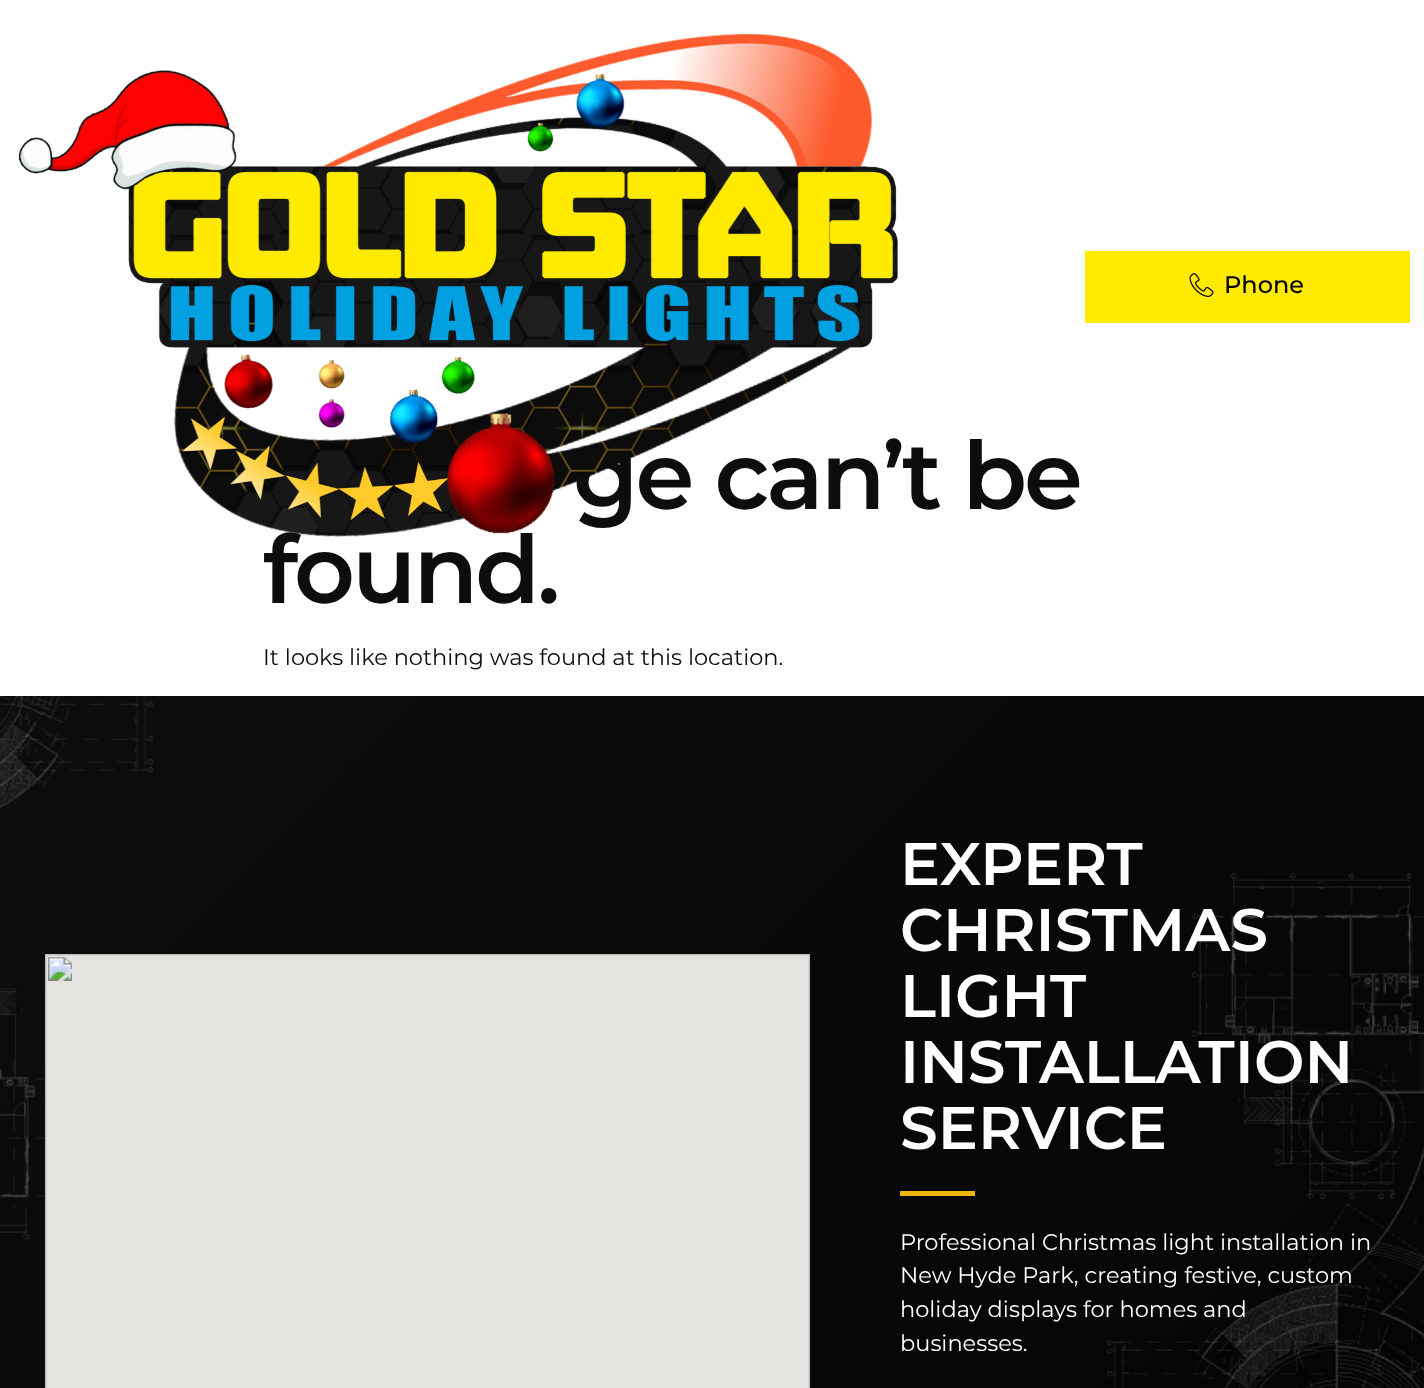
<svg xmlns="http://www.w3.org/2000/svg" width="1424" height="1388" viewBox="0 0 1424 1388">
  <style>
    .t1 { font: 600 94.5px Montserrat; letter-spacing: -3px; fill: #0d0d0d; }
    .t2 { font: 500 24px Montserrat; fill: #000; }
    .t3 { font: 22.5px Montserrat; fill: #0d0d0d; }
    .t4 { font: 600 60px Montserrat; fill: #fff; }
    .t5 { font: 22.5px Montserrat; fill: #fff; }
  </style>
  <defs>
    <linearGradient id="g1" gradientUnits="userSpaceOnUse" x1="115" y1="581" x2="1310" y2="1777"><stop offset="0" stop-color="#0d0d0d"/><stop offset="1" stop-color="#040404"/></linearGradient>
  </defs>
  <rect width="100%" height="100%" fill="#fff"/>
  <text x="573" y="509" class="t1">ge can’t be</text>
  <text x="263" y="603" class="t1">found.</text>
  <image x="18" y="33" width="880" height="504" href="images/1.png"/>
  <rect x="1085" y="251" width="325" height="72" fill="#ffea00"/>
  <image x="1189" y="273" width="25" height="24" href="images/2.png"/>
  <text x="1224" y="293" class="t2">Phone</text>
  <text x="263" y="665" class="t3">It looks like nothing was found at this location.</text>
  <rect x="0" y="696" width="1424" height="692" fill="url(#g1)"/>
  <image x="0" y="696" width="1424" height="692" href="images/3.png"/>
  <image x="45" y="954" width="765" height="434" href="images/4.png"/>
  <text x="900" y="885" class="t4">EXPERT</text>
  <text x="900" y="951" class="t4">CHRISTMAS</text>
  <text x="900" y="1017" class="t4">LIGHT</text>
  <text x="900" y="1083" class="t4">INSTALLATION</text>
  <text x="900" y="1149" class="t4">SERVICE</text>
  <rect x="900" y="1191" width="75" height="5" fill="#eeb609"/>
  <text x="900" y="1250" class="t5">Professional Christmas light installation in</text>
  <text x="900" y="1283" class="t5">New Hyde Park, creating festive, custom</text>
  <text x="900" y="1317" class="t5">holiday displays for homes and</text>
  <text x="900" y="1351" class="t5">businesses.</text>
</svg>
